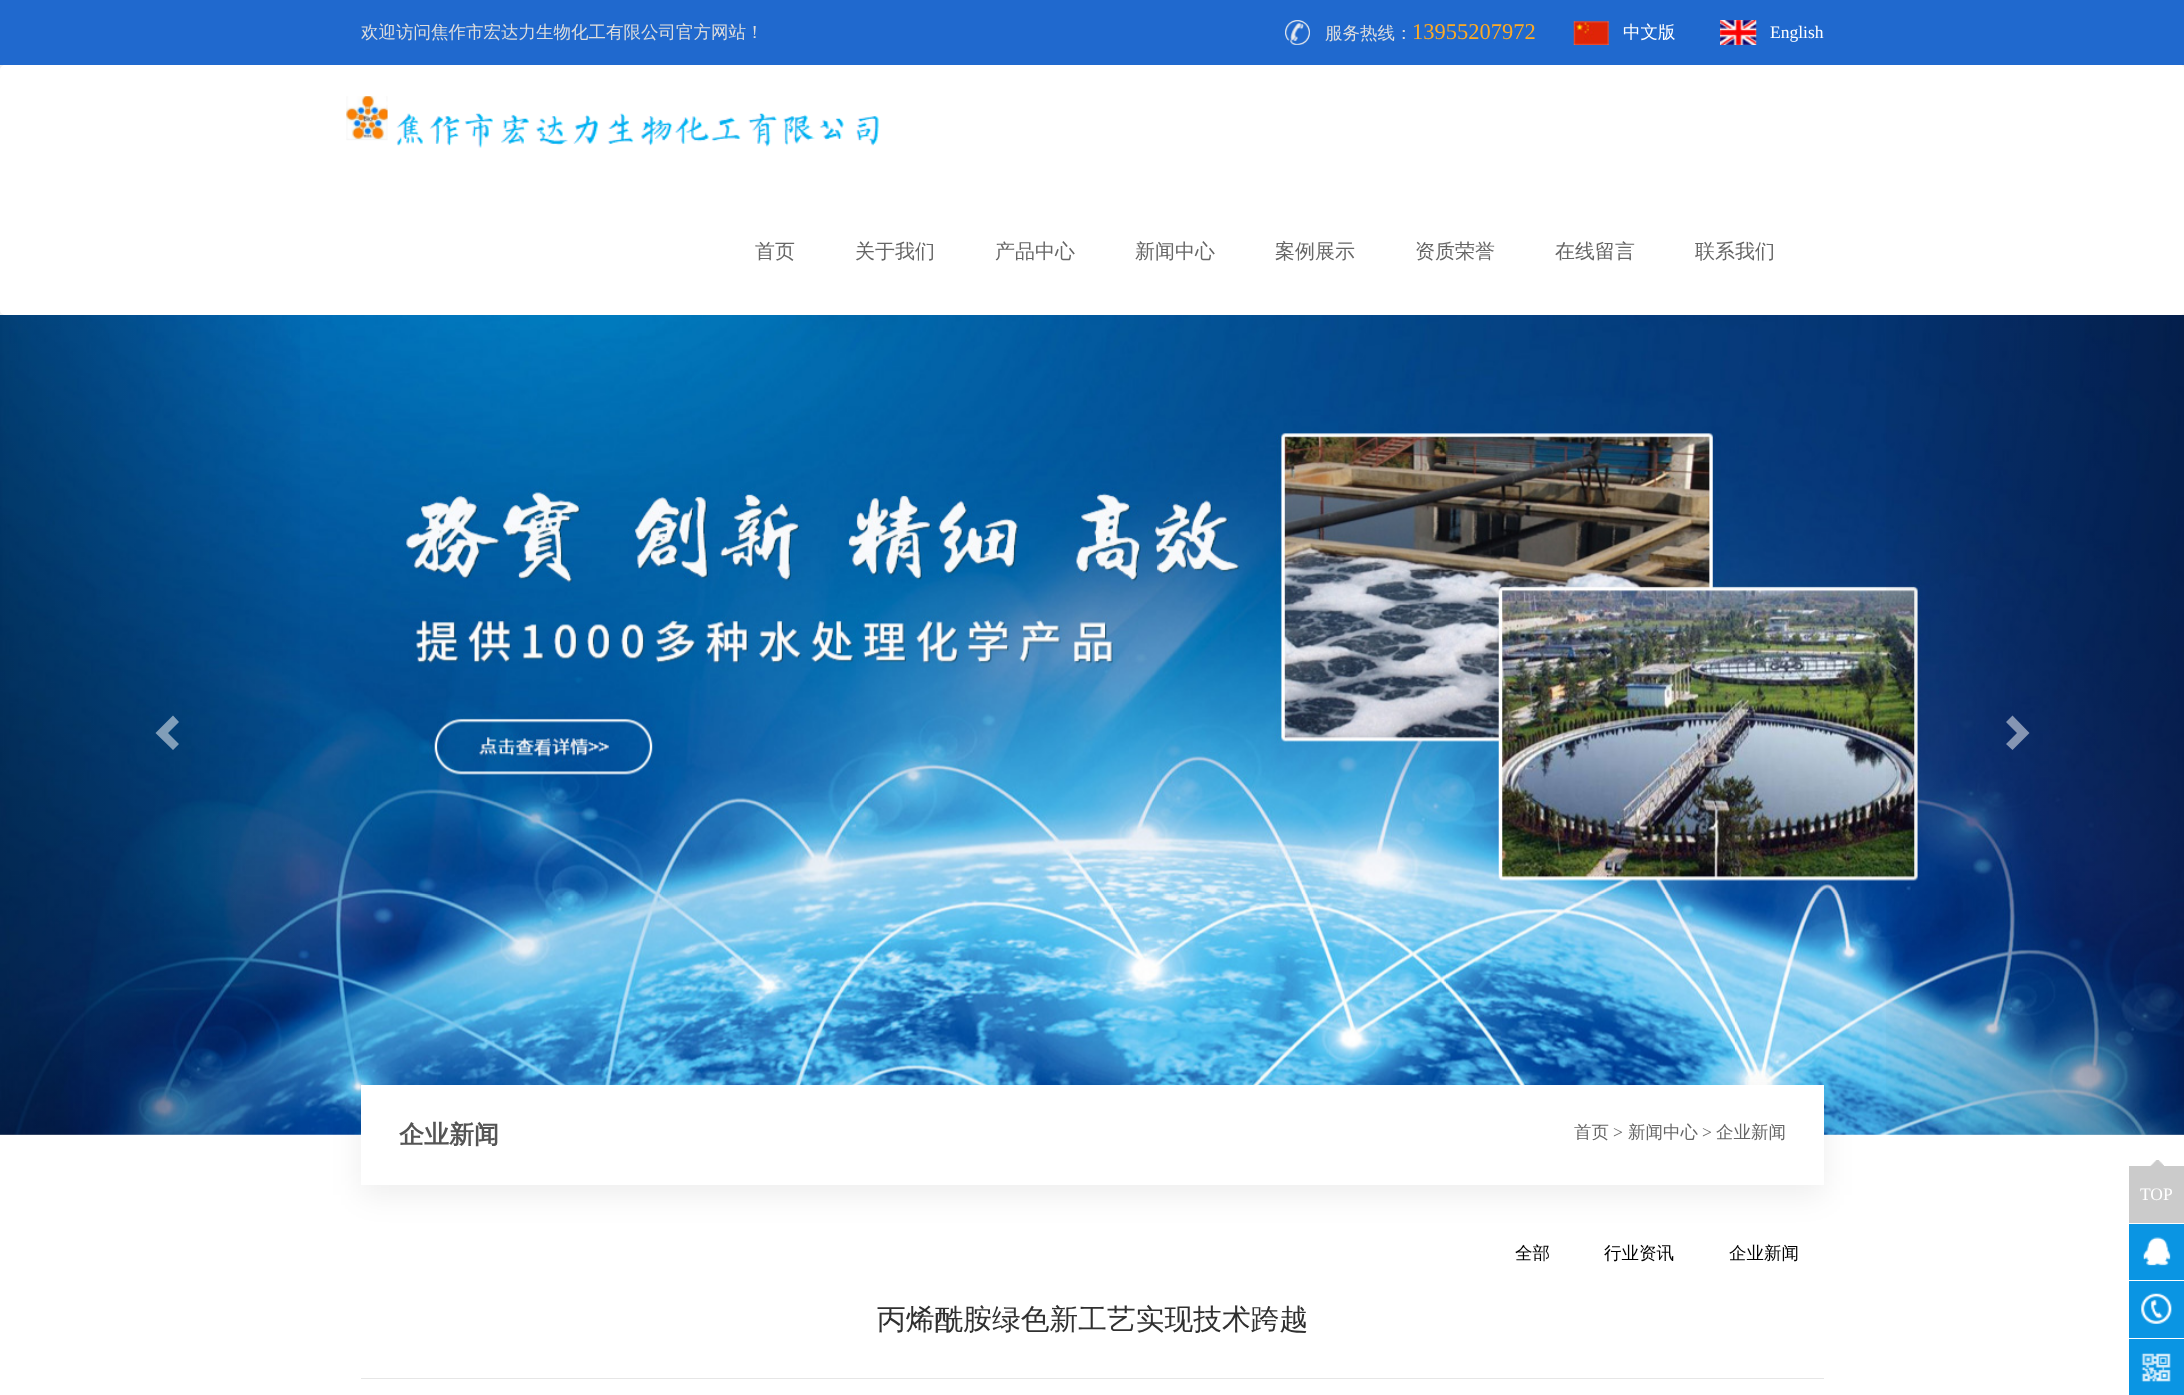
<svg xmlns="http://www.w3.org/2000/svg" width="2184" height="1395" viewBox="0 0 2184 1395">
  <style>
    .t1 { font: 500 17.5px WenQuanYi Zen Hei; fill: #ddd; }
    .t2 { font: 22.5px Liberation Serif; fill: #feaa24; }
    .t3 { font: 500 17.5px WenQuanYi Zen Hei; fill: #fff; }
    .t4 { font: 17.5px Liberation Serif; fill: #fff; }
    .t5 { font: 500 20px WenQuanYi Zen Hei; fill: #666; }
    .t6 { font: bold 25px WenQuanYi Zen Hei; fill: #555; }
    .t7 { font: 500 17.5px WenQuanYi Zen Hei; fill: #666; }
    .t8 { font: 17.5px Liberation Serif; fill: #666; }
    .t9 { font: 500 17.5px WenQuanYi Zen Hei; fill: #000; }
    .t10 { font: 500 28.75px WenQuanYi Zen Hei; fill: #303030; }
  </style>
  <defs>
    <linearGradient id="g1" gradientUnits="userSpaceOnUse" x1="0" y1="725" x2="328" y2="725"><stop offset="0" stop-color="#000" stop-opacity="0.25"/><stop offset="1" stop-color="#000" stop-opacity="0"/></linearGradient>
    <linearGradient id="g2" gradientUnits="userSpaceOnUse" x1="1858" y1="725" x2="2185" y2="725"><stop offset="0" stop-color="#000" stop-opacity="0"/><stop offset="1" stop-color="#000" stop-opacity="0.25"/></linearGradient>
  </defs>
  <rect width="100%" height="100%" fill="#f1f1f1"/>
  <rect x="0" y="0" width="2184" height="65" fill="#2069ce"/>
  <text x="361" y="38" class="t1">欢迎访问焦作市宏达力生物化工有限公司官方网站！</text>
  <image x="1285" y="20" width="25" height="25" href="images/1.png"/>
  <text x="1325" y="39" class="t1">服务热线：</text>
  <text x="1412" y="39" class="t2">13955207972</text>
  <image x="1573" y="21" width="36" height="24" href="images/2.png"/>
  <text x="1623" y="38" class="t3">中文版</text>
  <image x="1720" y="20" width="37" height="25" href="images/3.png"/>
  <text x="1770" y="38" class="t4">English</text>
  <rect x="0" y="65" width="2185" height="250" rx="5" fill="#fff"/>
  <image x="346" y="96" width="533" height="52" href="images/4.png"/>
  <text x="755" y="258" class="t5">首页</text>
  <text x="855" y="258" class="t5">关于我们</text>
  <text x="995" y="258" class="t5">产品中心</text>
  <text x="1135" y="258" class="t5">新闻中心</text>
  <text x="1275" y="258" class="t5">案例展示</text>
  <text x="1415" y="258" class="t5">资质荣誉</text>
  <text x="1555" y="258" class="t5">在线留言</text>
  <text x="1695" y="258" class="t5">联系我们</text>
  <image x="0" y="315" width="2184" height="820" href="images/5.png"/>
  <rect x="0" y="315" width="300" height="820" fill="url(#g1)"/>
  <path d="M179 722L168 733L179 744L173 750L155.5 733L173 715.5Z" fill="#ffffff80"/>
  <rect x="1886" y="315" width="298" height="820" fill="url(#g2)"/>
  <path d="M2029.5 733L2012.5 750L2006 744L2017 733L2006 722L2012.5 715.5Z" fill="#ffffff80"/>
  <rect x="0" y="1135" width="2184" height="98" fill="#fff"/>
  <rect x="361" y="1095" width="1463" height="100" fill="#00000012" filter="blur(15.5px)"/>
  <rect x="361" y="1085" width="1463" height="100" fill="#fff"/>
  <text x="399" y="1143" class="t6">企业新闻</text>
  <text x="1574" y="1138" class="t7">首页</text>
  <text x="1613" y="1138" class="t8">&gt;</text>
  <text x="1628" y="1138" class="t7">新闻中心</text>
  <text x="1702" y="1138" class="t8">&gt;</text>
  <text x="1716" y="1138" class="t7">企业新闻</text>
  <image x="2150" y="1160" width="14" height="6" href="images/6.png"/>
  <rect x="0" y="1233" width="2184" height="162" fill="#fff"/>
  <text x="1515" y="1259" class="t9">全部</text>
  <text x="1604" y="1259" class="t9">行业资讯</text>
  <text x="1729" y="1259" class="t9">企业新闻</text>
  <rect x="361" y="1378" width="1463" height="1" fill="#e6e6e6"/>
  <text x="877" y="1329" class="t10">丙烯酰胺绿色新工艺实现技术跨越</text>
  <rect x="2129" y="1166" width="55" height="57" fill="#cbcbcb"/>
  <image x="2150" y="1160" width="14" height="6" href="images/7.png"/>
  <text x="2140" y="1200" class="t4">TOP</text>
  <rect x="2129" y="1224" width="55" height="56" fill="#0a95e3"/>
  <image x="2143" y="1237" width="28" height="29" href="images/8.png"/>
  <rect x="2129" y="1281" width="55" height="57" fill="#0a95e3"/>
  <image x="2141" y="1293" width="31" height="31" href="images/9.png"/>
  <rect x="2129" y="1339" width="55" height="56" fill="#0a95e3"/>
  <image x="2141" y="1353" width="30" height="29" href="images/10.png"/>
</svg>
